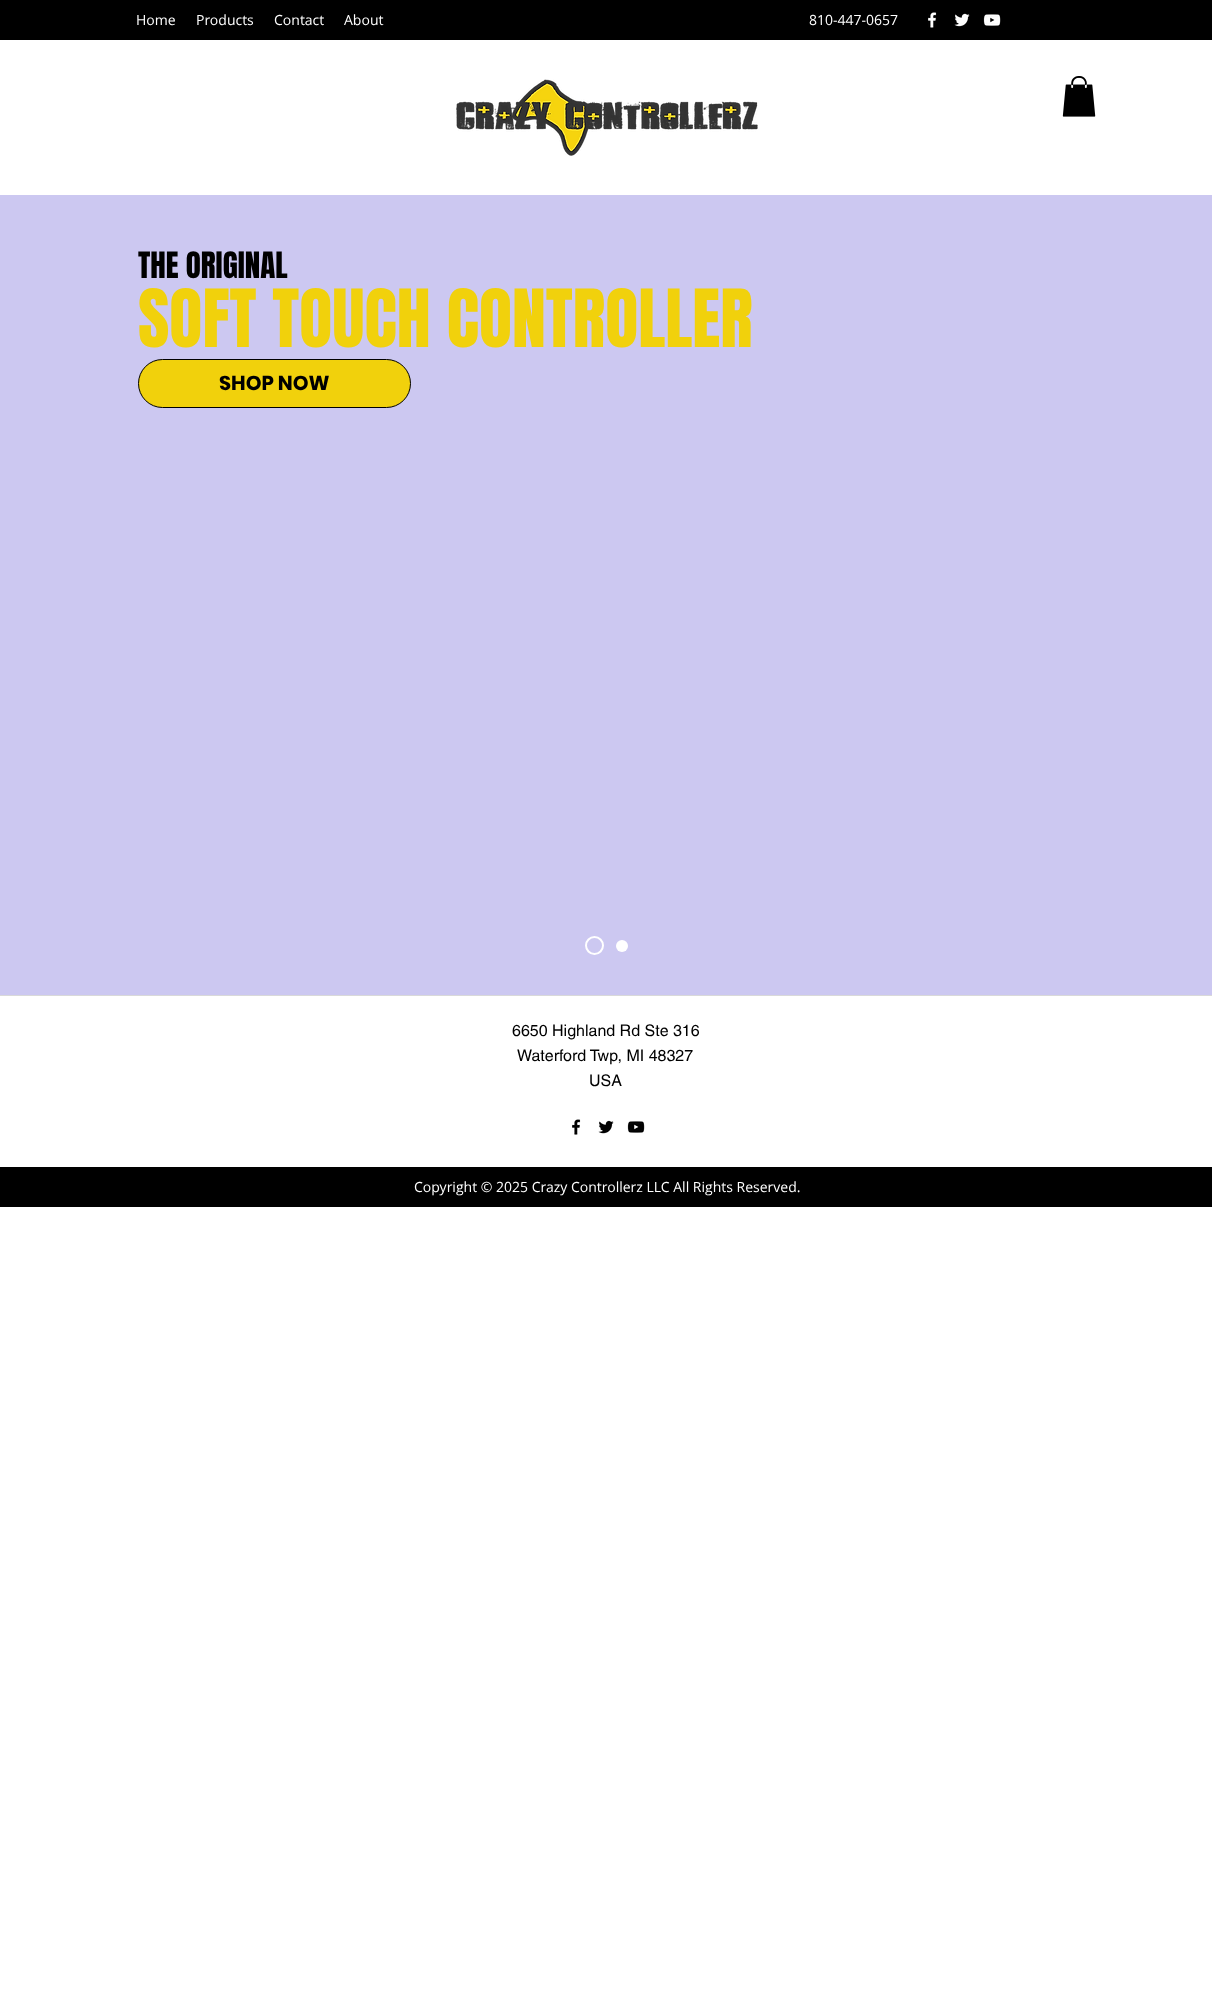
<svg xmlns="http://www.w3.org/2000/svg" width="1212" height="2000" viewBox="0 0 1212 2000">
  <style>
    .t1 { font: 14px Open Sans; fill: #fff; }
    .t2 { font: 31px Anton; fill: #000; }
    .t3 { font: 68px Anton; fill: #f1d10c; }
    .t4 { font: bold 20px Poppins; fill: #000; }
    .t5 { font: 16px helvetica; fill: #000; }
  </style>
  <rect width="100%" height="100%" fill="#fff"/>
  <rect x="0" y="0" width="1212" height="40" fill="#000"/>
  <text x="136" y="25" class="t1">Home</text>
  <text x="196" y="25" class="t1">Products</text>
  <text x="274" y="25" class="t1">Contact</text>
  <text x="344" y="25" class="t1">About</text>
  <text x="809" y="25" class="t1">810-447-0657</text>
  <image x="928" y="12" width="9" height="16" href="images/1.png"/>
  <image x="954" y="13" width="16" height="14" href="images/2.png"/>
  <image x="983" y="14" width="18" height="12" href="images/3.png"/>
  <image x="456" y="79" width="302" height="77" href="images/4.png"/>
  <image x="1062" y="76" width="34" height="41" href="images/5.png"/>
  <rect x="0" y="195" width="1212" height="800" fill="#ccc8f1"/>
  <text x="138" y="278" class="t2">THE ORIGINAL</text>
  <text x="138" y="347" class="t3">SOFT TOUCH CONTROLLER</text>
  <rect x="138.5" y="359.5" width="272" height="48" rx="24" fill="#f1d10c" stroke="#000"/>
  <text x="219" y="390" class="t4">SHOP NOW</text>
  <circle cx="594.5" cy="945.5" r="8.5" fill="none" stroke="#fff" stroke-width="2"/>
  <circle cx="622" cy="946" r="6" fill="#fff"/>
  <rect x="0" y="995" width="1212" height="1" fill="#d9d9d9"/>
  <text x="512" y="1036" class="t5">6650 Highland Rd Ste 316</text>
  <text x="517" y="1061" class="t5">Waterford Twp, MI 48327</text>
  <text x="589" y="1086" class="t5">USA</text>
  <image x="572" y="1119" width="9" height="16" href="images/6.png"/>
  <image x="598" y="1120" width="16" height="14" href="images/7.png"/>
  <image x="627" y="1121" width="18" height="12" href="images/8.png"/>
  <rect x="0" y="1167" width="1212" height="40" fill="#000"/>
  <text x="414" y="1192" class="t1">Copyright © 2025 Crazy Controllerz LLC All Rights Reserved.</text>
</svg>
